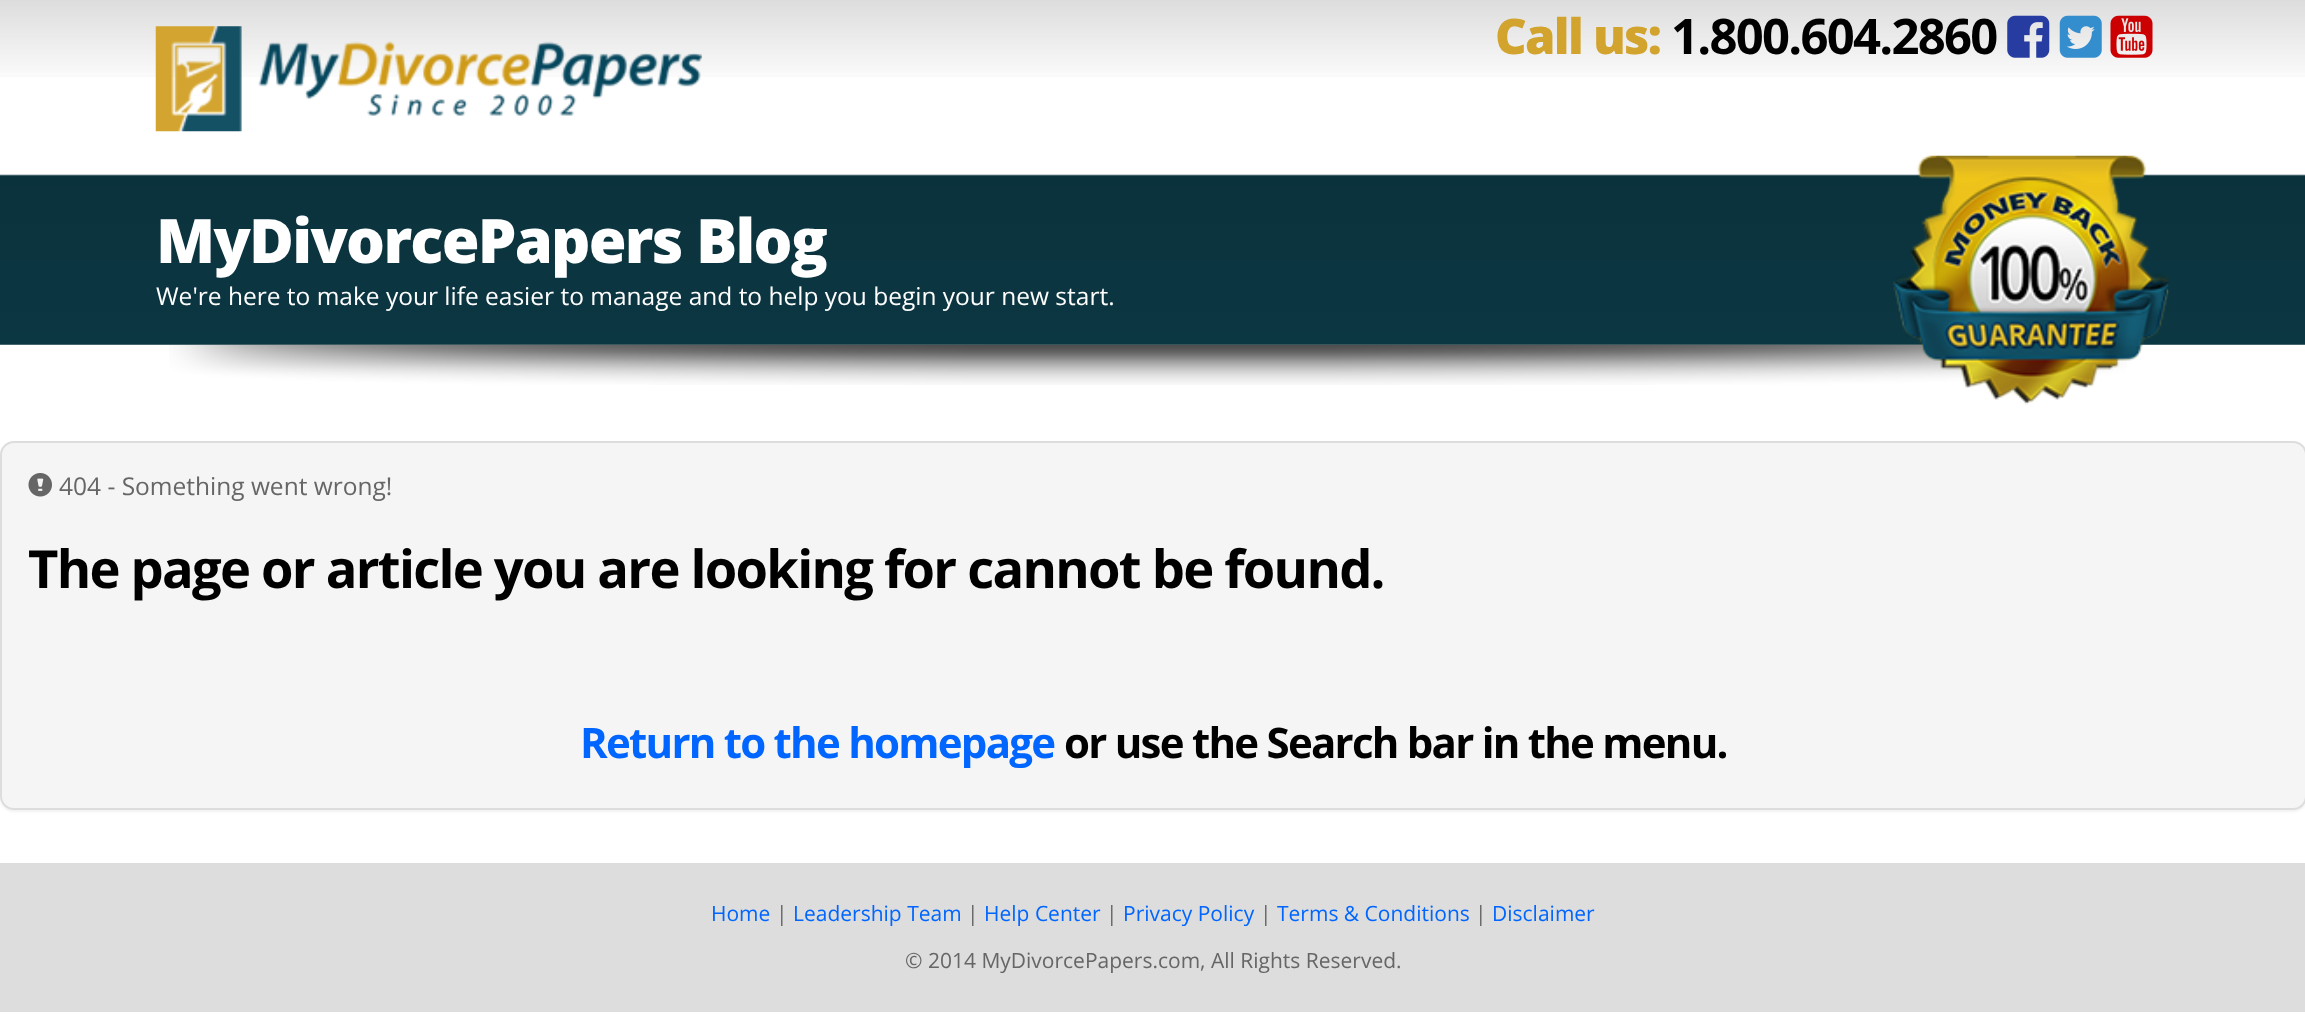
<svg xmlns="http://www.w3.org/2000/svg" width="2305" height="1023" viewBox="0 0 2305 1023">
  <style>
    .t1 { font: 800 49px Open Sans; letter-spacing: -1.75px; fill: #d2a42e; }
    .t2 { font: bold 49px Open Sans; letter-spacing: -1.75px; fill: #000; }
    .t3 { font: 800 61.25px Open Sans; letter-spacing: -1.75px; fill: #fff; }
    .t4 { font: 24.5px Open Sans; fill: #fff; }
    .t5 { font: 24.5px Open Sans; fill: #666; }
    .t6 { font: bold 52.5px Open Sans; letter-spacing: -1.75px; fill: #000; }
    .t7 { font: bold 42px Open Sans; letter-spacing: -1.75px; fill: #06f; }
    .t8 { font: bold 42px Open Sans; letter-spacing: -1.75px; fill: #000; }
    .t9 { font: 21px Open Sans; fill: #06f; }
    .t10 { font: 21px Open Sans; fill: #666; }
  </style>
  <rect width="100%" height="100%" fill="#fff"/>
  <image x="0" y="0" width="2305" height="77" href="images/1.png"/>
  <image x="155" y="26" width="547" height="106" href="images/2.png"/>
  <text x="1495" y="54" class="t1">Call us:</text>
  <text x="1671" y="54" class="t2">1.800.604.2860</text>
  <image x="2007" y="15" width="43" height="43" href="images/3.png"/>
  <image x="2059" y="15" width="43" height="43" href="images/4.png"/>
  <image x="2110" y="15" width="43" height="43" href="images/5.png"/>
  <image x="0" y="154" width="2305" height="191" href="images/6.png"/>
  <text x="156" y="263" class="t3">MyDivorcePapers Blog</text>
  <image x="169" y="344" width="1958" height="41" href="images/8.png"/>
  <image x="1893" y="155" width="276" height="250" href="images/7.png"/>
  <text x="156" y="305" class="t4">We're here to make your life easier to manage and to help you begin your new start.</text>
  <rect x="0" y="443" width="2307" height="369" rx="14" fill="#0000000d" filter="blur(1px)"/>
  <rect x="1" y="442" width="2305" height="367" rx="13" fill="#f5f5f5" stroke="#ddd" stroke-width="2"/>
  <image x="28" y="473" width="24" height="24" href="images/9.png"/>
  <text x="59" y="495" class="t5">404 - Something went wrong!</text>
  <text x="28" y="588" class="t6">The page or article you are looking for cannot be found.</text>
  <text x="580" y="758" class="t7">Return to the homepage</text>
  <text x="1064" y="758" class="t8">or use the Search bar in the menu.</text>
  <rect x="0" y="863" width="2305" height="149" fill="#ddd"/>
  <text x="711" y="921" class="t9">Home</text>
  <text x="776" y="921" class="t10">|</text>
  <text x="793" y="921" class="t9">Leadership Team</text>
  <text x="967" y="921" class="t10">|</text>
  <text x="984" y="921" class="t9">Help Center</text>
  <text x="1106" y="921" class="t10">|</text>
  <text x="1123" y="921" class="t9">Privacy Policy</text>
  <text x="1260" y="921" class="t10">|</text>
  <text x="1277" y="921" class="t9">Terms &amp; Conditions</text>
  <text x="1475" y="921" class="t10">|</text>
  <text x="1492" y="921" class="t9">Disclaimer</text>
  <text x="905" y="968" class="t10">© 2014 MyDivorcePapers.com, All Rights Reserved.</text>
</svg>
